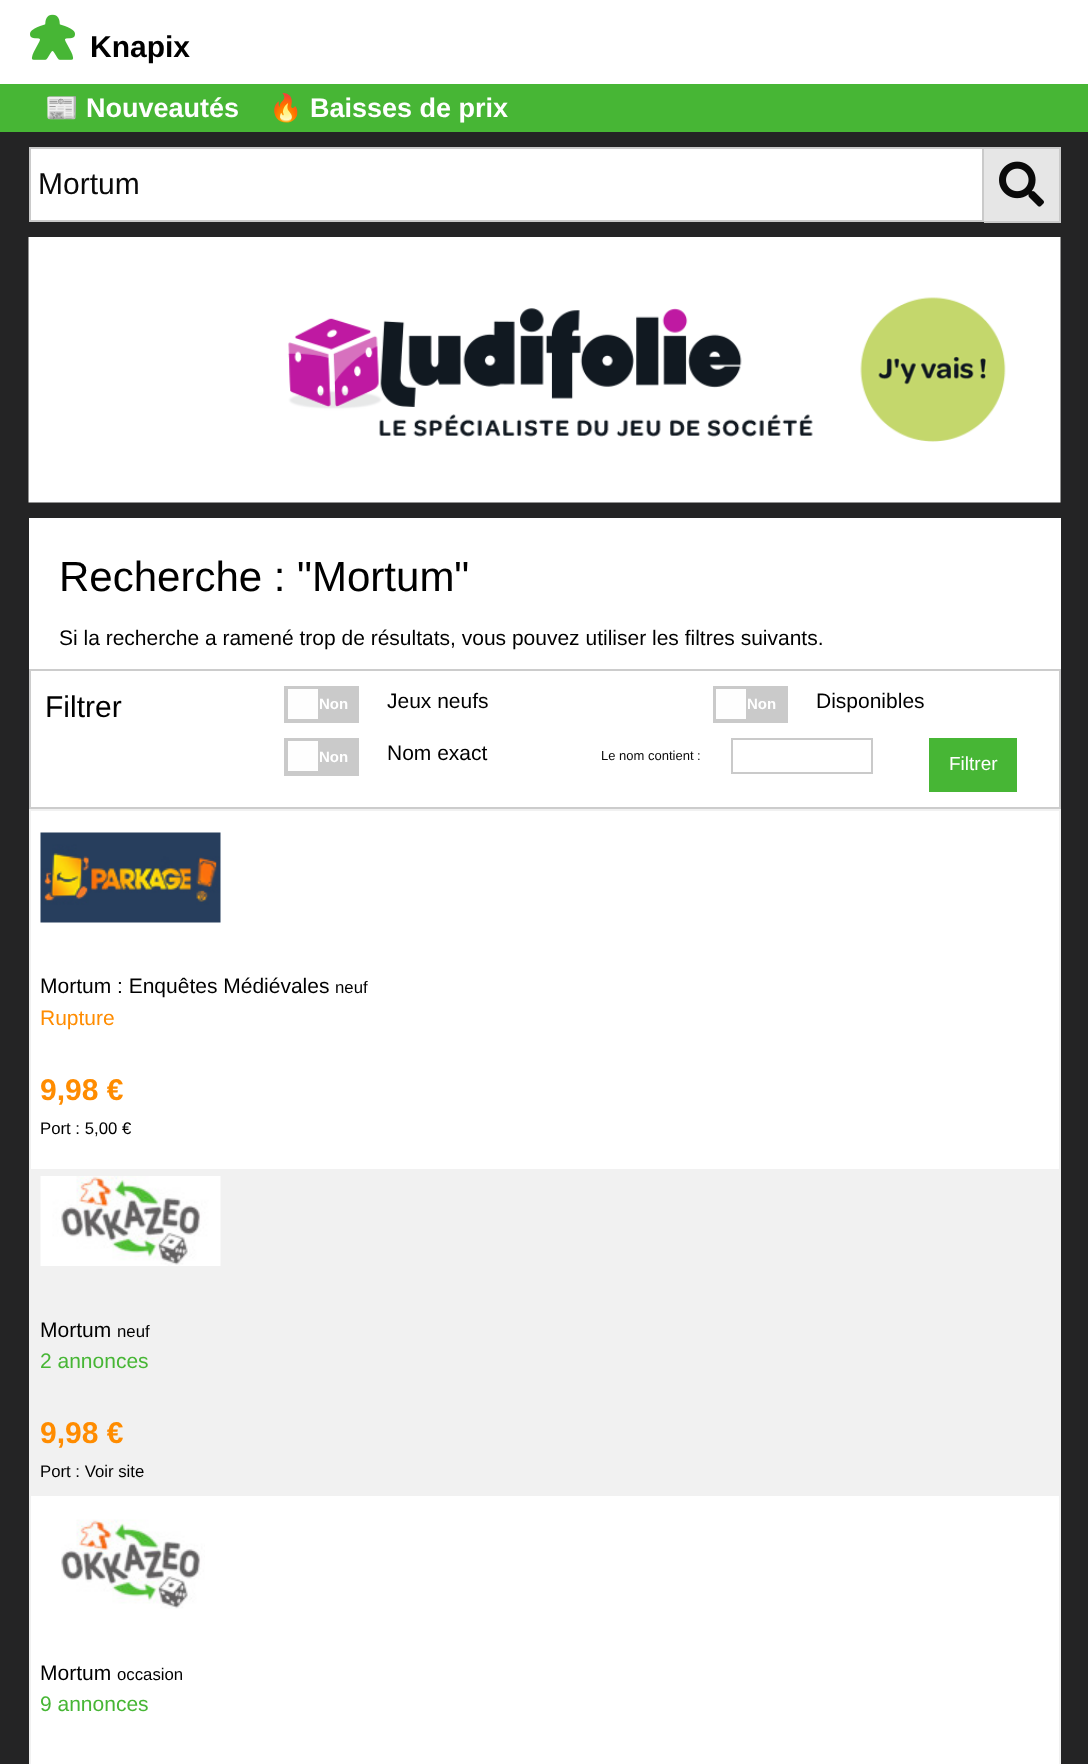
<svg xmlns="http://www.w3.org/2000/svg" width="1088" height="1764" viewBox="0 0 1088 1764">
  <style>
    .t1 { font: bold 30px Liberation Sans; fill: #000; }
    .t2 { font: bold 27px Noto Color Emoji; fill: #fff; }
    .t3 { font: bold 27px Liberation Sans; fill: #fff; }
    .t4 { font: 30px Liberation Sans; fill: #0a0a0a; }
    .t5 { font: 42px Liberation Sans; fill: #000; }
    .t6 { font: 21px Liberation Sans; fill: #000; }
    .t7 { font: 30px Liberation Sans; fill: #000; }
    .t8 { font: bold 15px Liberation Sans; fill: #fff; }
    .t9 { font: 13px Liberation Sans; fill: #0a0a0a; }
    .t10 { font: 19px Liberation Sans; fill: #fff; }
    .t11 { font: 16.75px Liberation Sans; fill: #000; }
    .t12 { font: 21px Liberation Sans; fill: #ff8c00; }
    .t13 { font: bold 30px Liberation Sans; fill: #ff8c00; }
    .t14 { font: 21px Liberation Sans; fill: #47b635; }
  </style>
  <rect width="100%" height="100%" fill="#fff"/>
  <image x="30" y="14" width="45" height="46" href="images/1.png"/>
  <text x="90" y="57" class="t1">Knapix</text>
  <rect x="0" y="84" width="1088" height="48" fill="#47b635"/>
  <text x="45" y="117" class="t2">📰</text>
  <text x="86" y="117" class="t3">Nouveautés</text>
  <text x="269" y="117" class="t2">🔥</text>
  <text x="310" y="117" class="t3">Baisses de prix</text>
  <rect x="0" y="132" width="1088" height="1632" fill="#242425"/>
  <rect x="30" y="148" width="953" height="73" fill="#fff" stroke="#cacaca" stroke-width="2"/>
  <text x="38" y="194" class="t4">Mortum</text>
  <rect x="984" y="149" width="75" height="72" fill="#e6e6e6"/>
  <rect x="984" y="147" width="77" height="2" fill="#cacaca"/>
  <rect x="1059" y="147" width="2" height="75" fill="#cacaca"/>
  <rect x="984" y="221" width="77" height="2" fill="#cacaca"/>
  <image x="999" y="161" width="45" height="46" href="images/2.png"/>
  <image x="28" y="237" width="1033" height="266" href="images/3.png"/>
  <rect x="29" y="518" width="1032" height="1246" fill="#fff"/>
  <text x="59" y="591" class="t5">Recherche : "Mortum"</text>
  <text x="59" y="645" class="t6">Si la recherche a ramené trop de résultats, vous pouvez utiliser les filtres suivants.</text>
  <rect x="30" y="670" width="1030" height="138" fill="none" stroke="#ccc" stroke-width="2"/>
  <text x="45" y="717" class="t7">Filtrer</text>
  <rect x="284" y="686" width="75" height="37" fill="#cacaca"/>
  <rect x="288" y="689" width="30" height="30" fill="#fefefe"/>
  <text x="319" y="709" class="t8">Non</text>
  <text x="387" y="708" class="t6">Jeux neufs</text>
  <rect x="713" y="686" width="75" height="37" fill="#cacaca"/>
  <rect x="716" y="689" width="30" height="30" fill="#fefefe"/>
  <text x="747" y="709" class="t8">Non</text>
  <text x="816" y="708" class="t6">Disponibles</text>
  <rect x="284" y="738" width="75" height="38" fill="#cacaca"/>
  <rect x="288" y="741" width="30" height="30" fill="#fefefe"/>
  <text x="319" y="762" class="t8">Non</text>
  <text x="387" y="760" class="t6">Nom exact</text>
  <text x="601" y="760" class="t9">Le nom contient :</text>
  <rect x="732" y="739" width="140" height="34" fill="none" stroke="#cacaca" stroke-width="2"/>
  <rect x="929" y="738" width="88" height="54" fill="#47b635"/>
  <text x="949" y="770" class="t10">Filtrer</text>
  <rect x="29" y="809" width="1032" height="2" fill="#f1f1f1"/>
  <rect x="1059" y="809" width="2" height="955" fill="#f1f1f1"/>
  <rect x="29" y="809" width="2" height="955" fill="#f1f1f1"/>
  <image x="40" y="832" width="181" height="91" href="images/4.png"/>
  <text x="40" y="993" class="t6">Mortum : Enquêtes Médiévales</text>
  <text x="335" y="993" class="t11">neuf</text>
  <text x="40" y="1025" class="t12">Rupture</text>
  <text x="40" y="1100" class="t13">9,98 €</text>
  <text x="40" y="1134" class="t11">Port : 5,00 €</text>
  <rect x="31" y="1169" width="1028" height="327" fill="#f1f1f1"/>
  <image x="40" y="1176" width="181" height="90" href="images/5.png"/>
  <text x="40" y="1337" class="t6">Mortum</text>
  <text x="117" y="1337" class="t11">neuf</text>
  <text x="40" y="1368" class="t14">2 annonces</text>
  <text x="40" y="1443" class="t13">9,98 €</text>
  <text x="40" y="1477" class="t11">Port : Voir site</text>
  <image x="61" y="1519" width="144" height="90" href="images/6.png"/>
  <text x="40" y="1680" class="t6">Mortum</text>
  <text x="117" y="1680" class="t11">occasion</text>
  <text x="40" y="1711" class="t14">9 annonces</text>
</svg>
